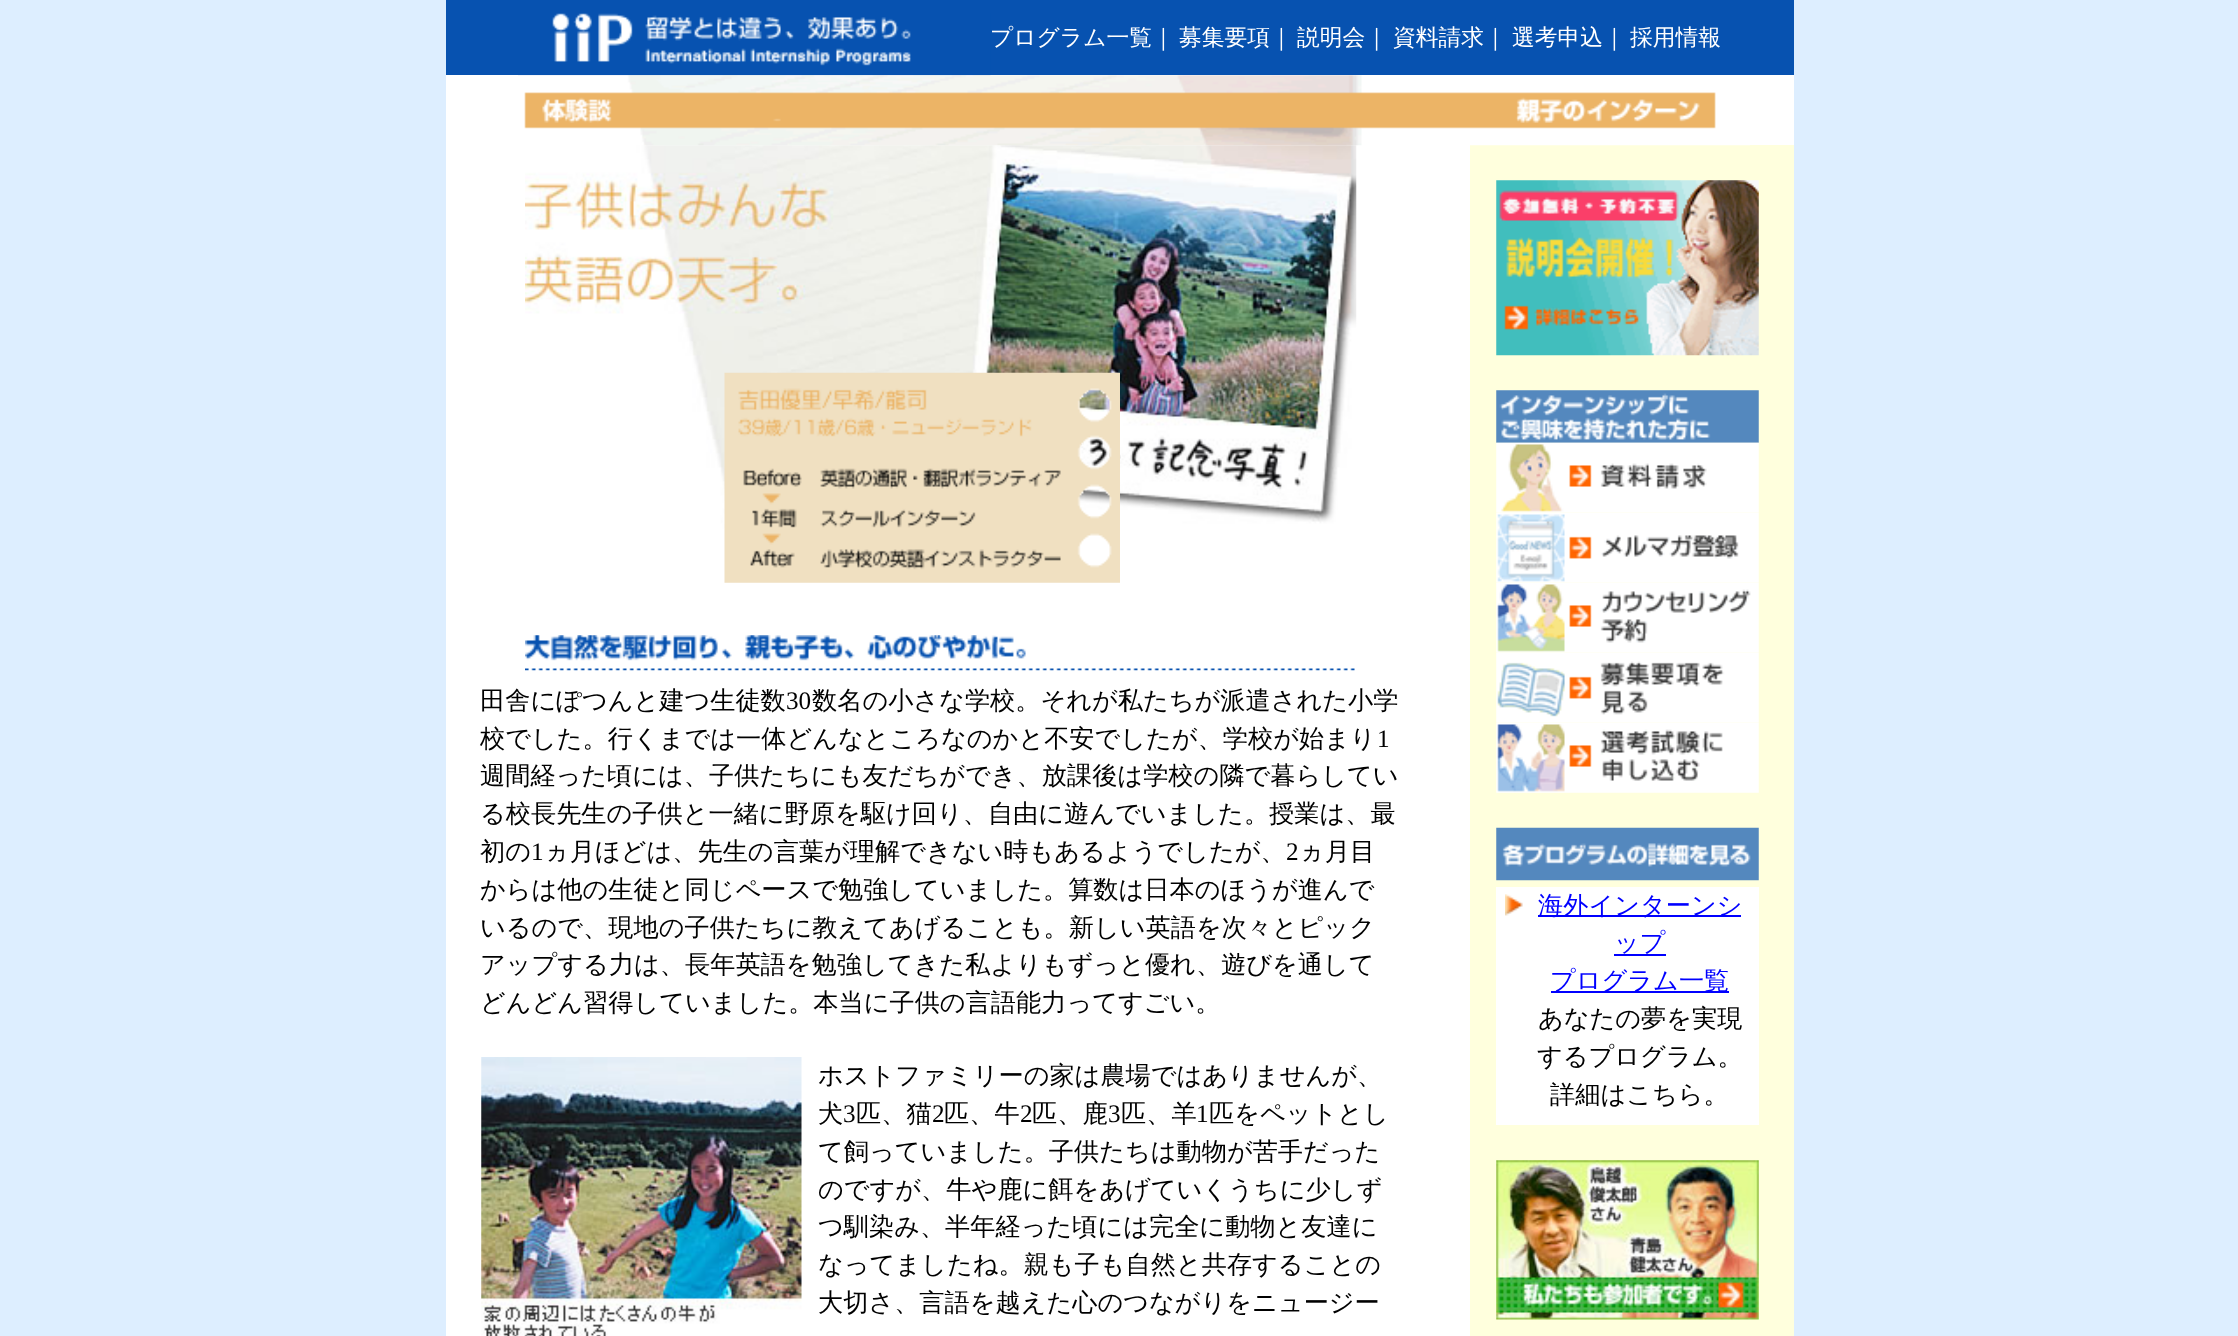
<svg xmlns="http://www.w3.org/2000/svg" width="2238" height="1336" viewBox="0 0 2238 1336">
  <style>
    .t1 { font: 500 22.75px WenQuanYi Zen Hei; fill: #fff; }
    .t2 { font: 500 25.2px WenQuanYi Zen Hei; fill: #000; }
    .t3 { font: 25.2px Liberation Serif; fill: #000; }
    .t4 { font: 500 25.2px WenQuanYi Zen Hei; fill: #00f; }
  </style>
  <rect width="100%" height="100%" fill="#def"/>
  <rect x="446" y="75" width="1348" height="1261" fill="#fff"/>
  <rect x="446" y="0" width="1348" height="75" fill="#0752b0"/>
  <image x="518" y="13" width="473" height="63" href="images/1.png"/>
  <text x="990" y="45" class="t1">プログラム一覧｜</text>
  <text x="1179" y="45" class="t1">募集要項｜</text>
  <text x="1297" y="45" class="t1">説明会｜</text>
  <text x="1393" y="45" class="t1">資料請求｜</text>
  <text x="1512" y="45" class="t1">選考申込｜</text>
  <text x="1630" y="45" class="t1">採用情報</text>
  <image x="525" y="145" width="832" height="398" href="images/3.png"/>
  <rect x="1470" y="145" width="324" height="1191" fill="#ffd"/>
  <image x="518" y="75" width="1232" height="71" href="images/2.png"/>
  <image x="724" y="372" width="396" height="211" href="images/4.png"/>
  <image x="525" y="635" width="830" height="36" href="images/5.png"/>
  <text x="480" y="709" class="t2">田舎にぽつんと建つ生徒数</text>
  <text x="786" y="709" class="t3">30</text>
  <text x="812" y="709" class="t2">数名の小さな学校。それが私たちが派遣された小学</text>
  <text x="480" y="747" class="t2">校でした。行くまでは一体どんなところなのかと不安でしたが、学校が始まり</text>
  <text x="1377" y="747" class="t3">1</text>
  <text x="480" y="784" class="t2">週間経った頃には、子供たちにも友だちができ、放課後は学校の隣で暮らしてい</text>
  <text x="480" y="822" class="t2">る校長先生の子供と一緒に野原を駆け回り、自由に遊んでいました。授業は、最</text>
  <text x="480" y="860" class="t2">初の</text>
  <text x="531" y="860" class="t3">1</text>
  <text x="544" y="860" class="t2">ヵ月ほどは、先生の言葉が理解できない時もあるようでしたが、</text>
  <text x="1286" y="860" class="t3">2</text>
  <text x="1299" y="860" class="t2">ヵ月目</text>
  <text x="480" y="898" class="t2">からは他の生徒と同じペースで勉強していました。算数は日本のほうが進んで</text>
  <text x="480" y="936" class="t2">いるので、現地の子供たちに教えてあげることも。新しい英語を次々とピック</text>
  <text x="480" y="973" class="t2">アップする力は、長年英語を勉強してきた私よりもずっと優れ、遊びを通して</text>
  <text x="480" y="1011" class="t2">どんどん習得していました。本当に子供の言語能力ってすごい。</text>
  <image x="481" y="1057" width="321" height="279" href="images/6.png"/>
  <text x="818" y="1084" class="t2">ホストファミリーの家は農場ではありませんが、</text>
  <text x="818" y="1122" class="t2">犬</text>
  <text x="843" y="1122" class="t3">3</text>
  <text x="856" y="1122" class="t2">匹、猫</text>
  <text x="932" y="1122" class="t3">2</text>
  <text x="944" y="1122" class="t2">匹、牛</text>
  <text x="1020" y="1122" class="t3">2</text>
  <text x="1032" y="1122" class="t2">匹、鹿</text>
  <text x="1108" y="1122" class="t3">3</text>
  <text x="1121" y="1122" class="t2">匹、羊</text>
  <text x="1196" y="1122" class="t3">1</text>
  <text x="1209" y="1122" class="t2">匹をペットとし</text>
  <text x="818" y="1160" class="t2">て飼っていました。子供たちは動物が苦手だった</text>
  <text x="818" y="1198" class="t2">のですが、牛や鹿に餌をあげていくうちに少しず</text>
  <text x="818" y="1235" class="t2">つ馴染み、半年経った頃には完全に動物と友達に</text>
  <text x="818" y="1273" class="t2">なってましたね。親も子も自然と共存することの</text>
  <text x="818" y="1311" class="t2">大切さ、言語を越えた心のつながりをニュージー</text>
  <image x="1496" y="180" width="263" height="176" href="images/7.png"/>
  <image x="1496" y="390" width="263" height="53" href="images/8.png"/>
  <image x="1496" y="442" width="263" height="71" href="images/9.png"/>
  <image x="1496" y="513" width="263" height="70" href="images/10.png"/>
  <image x="1496" y="583" width="263" height="70" href="images/11.png"/>
  <image x="1496" y="653" width="263" height="70" href="images/12.png"/>
  <image x="1496" y="723" width="263" height="70" href="images/13.png"/>
  <image x="1496" y="827" width="263" height="54" href="images/14.png"/>
  <rect x="1496" y="887" width="263" height="238" fill="#fff"/>
  <image x="1505" y="894" width="18" height="22" href="images/15.png"/>
  <rect x="1538" y="915" width="203" height="2" fill="#00f"/>
  <text x="1538" y="914" class="t4">海外インターンシ</text>
  <text x="1614" y="951" class="t4">ップ</text>
  <rect x="1614" y="954" width="52" height="2" fill="#00f"/>
  <rect x="1551" y="991" width="178" height="2" fill="#00f"/>
  <text x="1550" y="989" class="t4">プログラム一覧</text>
  <text x="1538" y="1027" class="t2">あなたの夢を実現</text>
  <text x="1537" y="1065" class="t2">するプログラム。</text>
  <text x="1550" y="1103" class="t2">詳細はこちら。</text>
  <image x="1496" y="1160" width="263" height="160" href="images/16.png"/>
</svg>
